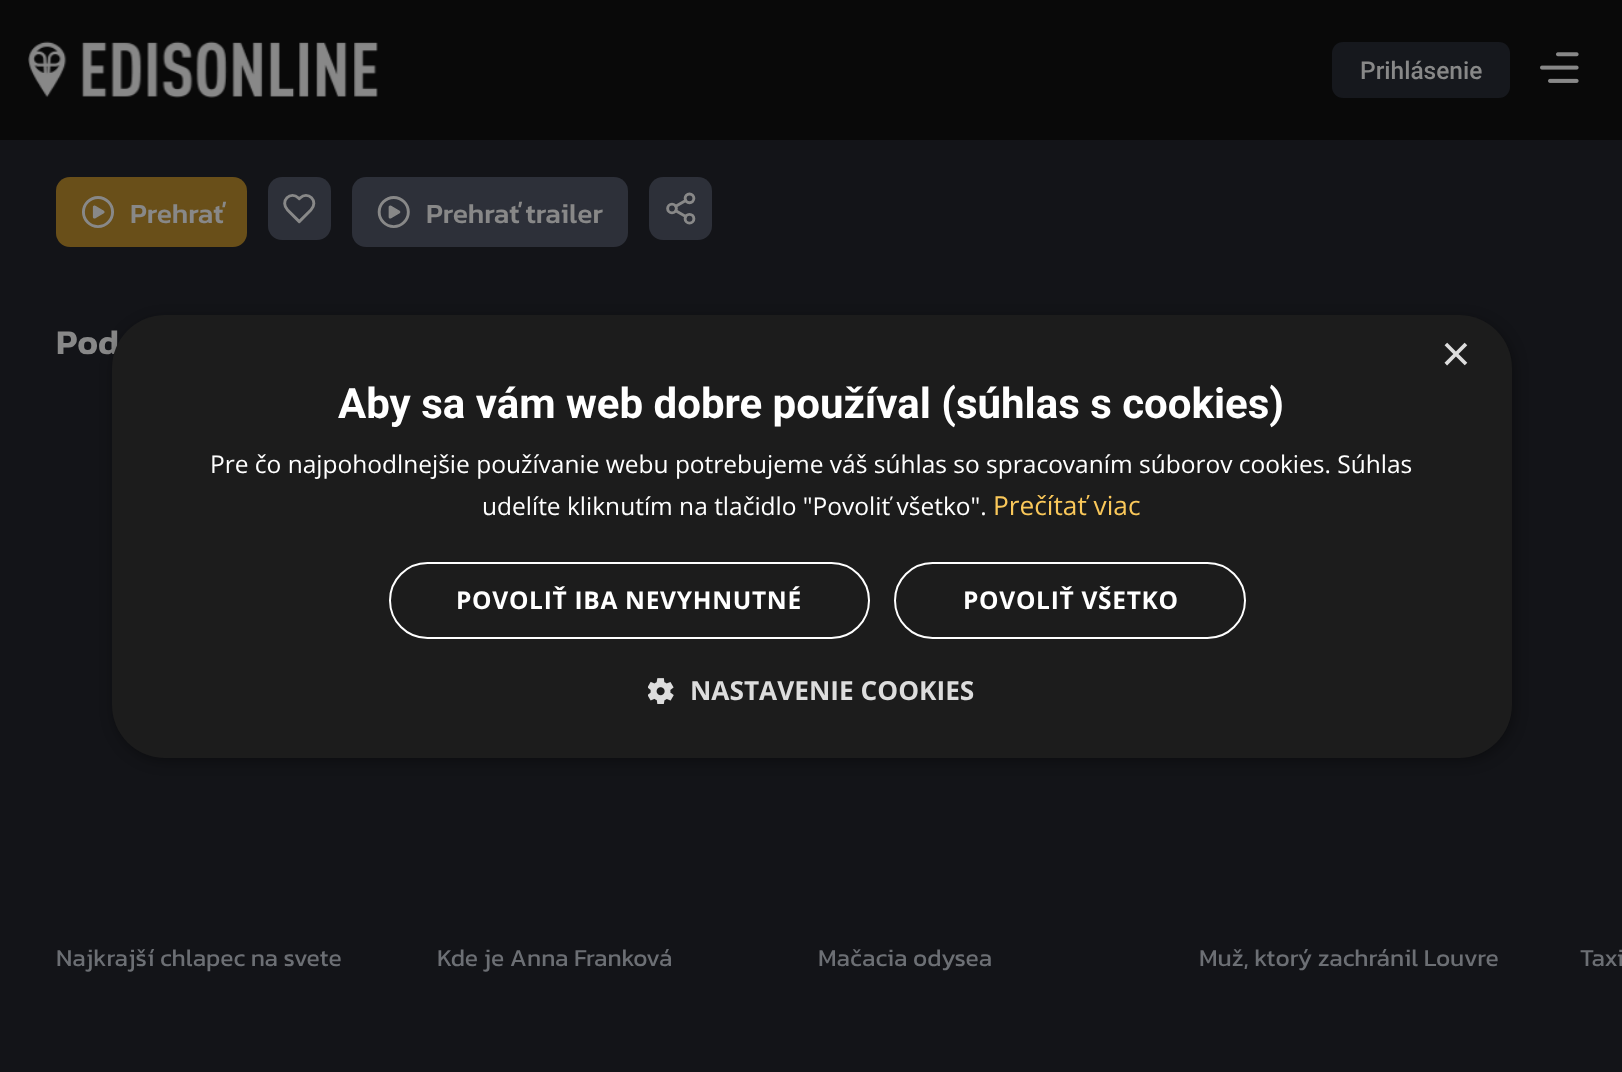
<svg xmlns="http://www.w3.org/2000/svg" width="1622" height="1072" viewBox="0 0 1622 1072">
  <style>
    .t1 { font: 500 24.5px Roboto; fill: #888; }
    .t2 { font: 500 28px Kanit; fill: #888; }
    .t3 { font: 600 35px Kanit; fill: #888; }
    .t4 { font: 24.5px Kanit; fill: #6c6f74; }
    .t5 { font: 51px Liberation Sans; fill: #ddd; }
    .t6 { font: bold 42px Roboto; fill: #fff; }
    .t7 { font: 24.5px Open Sans; fill: #fff; }
    .t8 { font: 26.25px Open Sans; fill: #fac85a; }
    .t9 { font: bold 24.5px Open Sans; letter-spacing: 0.7px; fill: #fff; }
    .t10 { font: bold 26.25px Open Sans; fill: #ddd; }
  </style>
  <rect width="100%" height="100%" fill="#131418"/>
  <rect x="0" y="0" width="1622" height="140" fill="#090909"/>
  <image x="28" y="41" width="350" height="57" href="images/1.png"/>
  <rect x="1332" y="42" width="178" height="56" rx="11" fill="#16181d"/>
  <text x="1360" y="79" class="t1">Prihlásenie</text>
  <image x="1540" y="52" width="39" height="31" href="images/2.png"/>
  <rect x="56" y="177" width="191" height="70" rx="14" fill="#694f19"/>
  <image x="82" y="196" width="32" height="32" href="images/3.png"/>
  <text x="130" y="223" class="t2">Prehrať</text>
  <rect x="268" y="177" width="63" height="63" rx="14" fill="#2d3039"/>
  <image x="283" y="194" width="33" height="30" href="images/4.png"/>
  <rect x="352" y="177" width="276" height="70" rx="14" fill="#2d3039"/>
  <image x="377" y="196" width="33" height="32" href="images/5.png"/>
  <text x="426" y="223" class="t2">Prehrať trailer</text>
  <rect x="649" y="177" width="63" height="63" rx="14" fill="#2d3039"/>
  <image x="666" y="192" width="30" height="33" href="images/6.png"/>
  <text x="56" y="354" class="t3">Pod</text>
  <text x="56" y="966" class="t4">Najkrajší chlapec na svete</text>
  <text x="437" y="966" class="t4">Kde je Anna Franková</text>
  <text x="818" y="966" class="t4">Mačacia odysea</text>
  <text x="1199" y="966" class="t4">Muž, ktorý zachránil Louvre</text>
  <text x="1580" y="966" class="t4">Taxi</text>
  <rect x="114" y="319" width="1400" height="442" rx="53" fill="#00000059" filter="blur(7px)"/>
  <rect x="112" y="315" width="1400" height="443" rx="53" fill="#1c1c1c"/>
  <text x="1441" y="371" class="t5">×</text>
  <text x="338" y="418" class="t6">Aby sa vám web dobre používal (súhlas s cookies)</text>
  <text x="210" y="473" class="t7">Pre čo najpohodlnejšie používanie webu potrebujeme váš súhlas so spracovaním súborov cookies. Súhlas</text>
  <text x="482" y="515" class="t7">udelíte kliknutím na tlačidlo "Povoliť všetko".</text>
  <text x="993" y="515" class="t8">Prečítať viac</text>
  <rect x="390" y="563" width="479" height="75" rx="37.5" fill="none" stroke="#fff" stroke-width="2"/>
  <text x="456" y="609" class="t9">POVOLIŤ IBA NEVYHNUTNÉ</text>
  <rect x="895" y="563" width="350" height="75" rx="37.5" fill="none" stroke="#fff" stroke-width="2"/>
  <text x="963" y="609" class="t9">POVOLIŤ VŠETKO</text>
  <image x="648" y="678" width="26" height="26" href="images/7.png"/>
  <text x="690" y="700" class="t10">NASTAVENIE COOKIES</text>
</svg>
